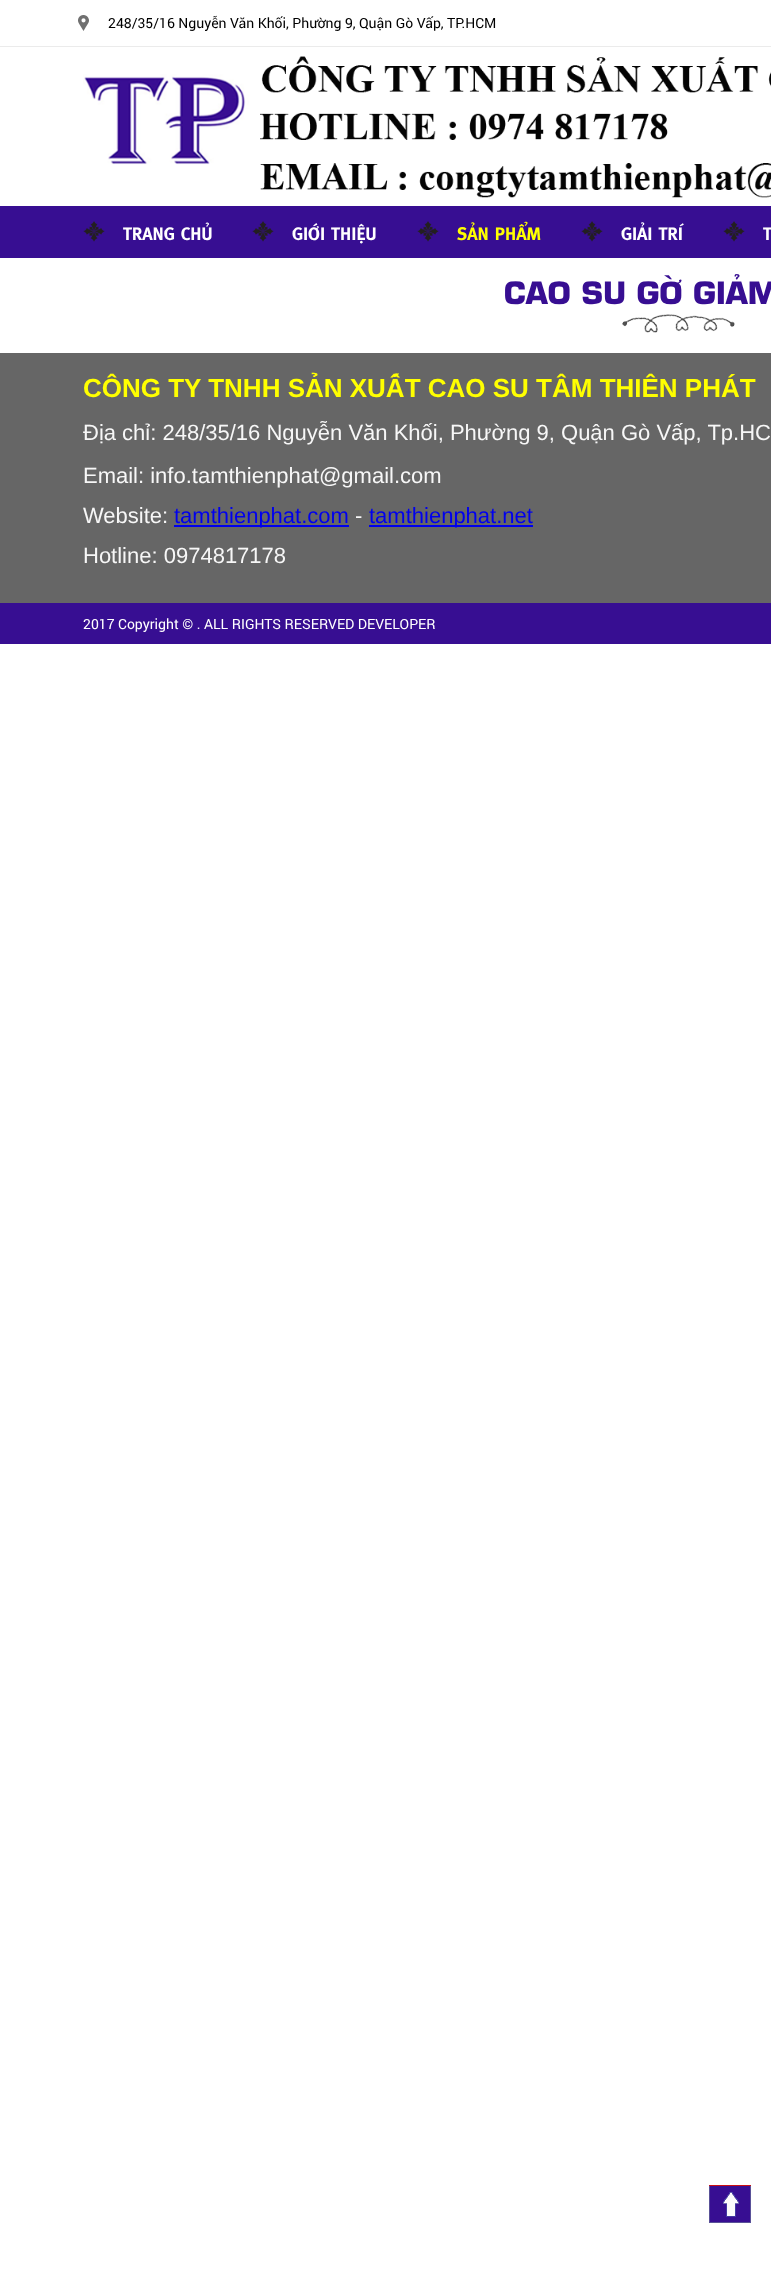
<svg xmlns="http://www.w3.org/2000/svg" width="771" height="2283" viewBox="0 0 771 2283">
  <style>
    .t1 { font: 14px Roboto; fill: #000; }
    .t2 { font: bold 18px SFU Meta; fill: #fff; }
    .t3 { font: bold 18px SFU Meta; fill: #ff0; }
    .t4 { font: bold 30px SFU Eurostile; fill: #370e92; }
    .t5 { font: bold 26px Liberation Sans; fill: #ff0; }
    .t6 { font: 22px Liberation Sans; fill: #f7f7f7; }
    .t7 { font: 22px Liberation Sans; fill: #00e; }
    .t8 { font: 14px Roboto; fill: #fff; }
  </style>
  <rect width="100%" height="100%" fill="#fff"/>
  <rect x="0" y="46" width="771" height="1" fill="#ebebeb"/>
  <image x="78" y="15" width="11" height="16" href="images/1.png"/>
  <text x="108" y="28" class="t1">248/35/16 Nguyễn Văn Khối, Phường 9, Quận Gò Vấp, TP.HCM</text>
  <image x="83" y="56" width="688" height="142" href="images/2.png"/>
  <rect x="0" y="206" width="771" height="52" fill="#370e92"/>
  <image x="83" y="221" width="22" height="21" href="images/3.png"/>
  <text x="123" y="240" class="t2">TRANG CHỦ</text>
  <image x="252" y="221" width="22" height="21" href="images/3.png"/>
  <text x="292" y="240" class="t2">GIỚI THIỆU</text>
  <image x="417" y="221" width="22" height="21" href="images/3.png"/>
  <text x="457" y="240" class="t3">SẢN PHẨM</text>
  <image x="581" y="221" width="22" height="21" href="images/3.png"/>
  <text x="621" y="240" class="t2">GIẢI TRÍ</text>
  <image x="723" y="221" width="22" height="21" href="images/3.png"/>
  <text x="763" y="240" class="t2">T</text>
  <image x="622" y="314" width="113" height="19" href="images/4.png"/>
  <text x="504" y="304" class="t4">CAO SU GỜ GIẢM</text>
  <rect x="0" y="353" width="771" height="250" fill="#666"/>
  <text x="83" y="397" class="t5">CÔNG TY TNHH SẢN XUẤT CAO SU TÂM THIÊN PHÁT</text>
  <text x="83" y="440" class="t6">Địa chỉ: 248/35/16 Nguyễn Văn Khối, Phường 9, Quận Gò Vấp, Tp.HC</text>
  <text x="83" y="483" class="t6">Email: info.tamthienphat@gmail.com</text>
  <text x="83" y="523" class="t6">Website:</text>
  <rect x="174" y="525" width="175" height="2" fill="#00e"/>
  <text x="174" y="523" class="t7">tamthienphat.com</text>
  <text x="355" y="523" class="t6">-</text>
  <rect x="369" y="525" width="164" height="2" fill="#00e"/>
  <text x="369" y="523" class="t7">tamthienphat.net</text>
  <text x="83" y="563" class="t6">Hotline: 0974817178</text>
  <rect x="0" y="603" width="771" height="41" fill="#370e92"/>
  <text x="83" y="629" class="t8">2017 Copyright © . ALL RIGHTS RESERVED DEVELOPER</text>
  <image x="709" y="2185" width="42" height="38" href="images/5.png"/>
</svg>
